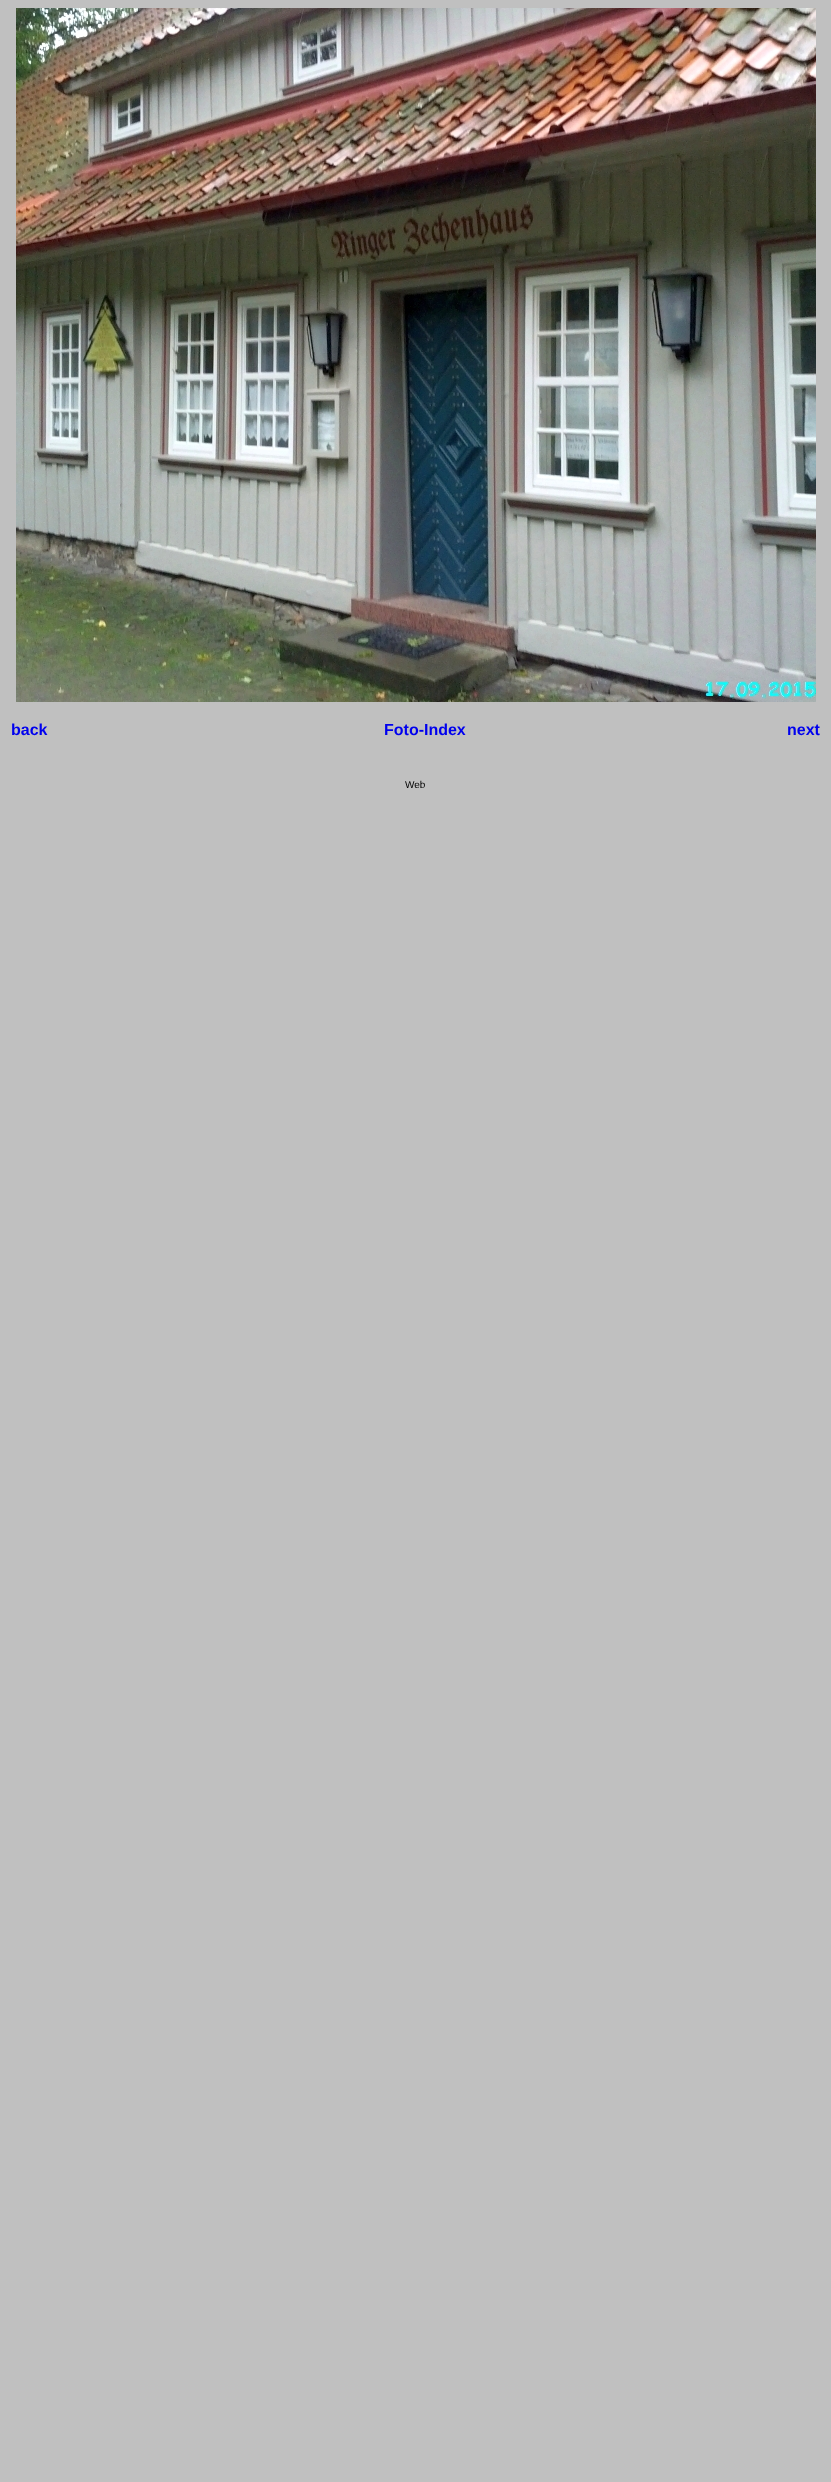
<svg xmlns="http://www.w3.org/2000/svg" width="831" height="2482" viewBox="0 0 831 2482">
  <style>
    .t1 { font: bold 16px Liberation Sans; fill: #00e; }
    .t2 { font: 10px Liberation Sans; fill: #000; }
  </style>
  <rect width="100%" height="100%" fill="#c0c0c0"/>
  <image x="16" y="8" width="800" height="694" href="images/1.png"/>
  <text x="11" y="735" class="t1">back</text>
  <text x="384" y="735" class="t1">Foto-Index</text>
  <text x="787" y="735" class="t1">next</text>
  <text x="405" y="788" class="t2">Web</text>
</svg>
